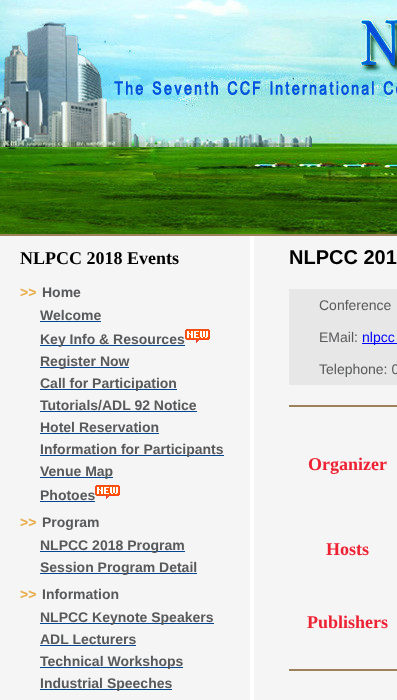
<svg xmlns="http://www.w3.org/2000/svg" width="397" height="700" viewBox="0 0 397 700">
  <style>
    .t1 { font: bold 18px Liberation Serif; fill: #000; }
    .t2 { font: bold 14px Liberation Sans; fill: #e8ad49; }
    .t3 { font: bold 14px Liberation Sans; fill: #58595b; }
    .t4 { font: bold 20px Liberation Sans; fill: #000; }
    .t5 { font: 14px Liberation Sans; fill: #58595b; }
    .t6 { font: 14px Liberation Sans; fill: #00f; }
    .t7 { font: bold 18px Liberation Serif; fill: #e23; }
  </style>
  <rect width="100%" height="100%" fill="#fff"/>
  <image x="0" y="0" width="397" height="234" href="images/1.png"/>
  <rect x="0" y="234" width="397" height="2" fill="#9d815a"/>
  <rect x="0" y="236" width="250" height="464" fill="#f5f5f5"/>
  <text x="20" y="264" class="t1">NLPCC 2018 Events</text>
  <text x="20" y="297" class="t2">&gt;&gt;</text>
  <text x="42" y="297" class="t3">Home</text>
  <text x="40" y="320" class="t3">Welcome</text>
  <rect x="40" y="321" width="61" height="1" fill="#024592"/>
  <rect x="40" y="345" width="145" height="1" fill="#024592"/>
  <text x="40" y="344" class="t3">Key Info &amp; Resources</text>
  <image x="185" y="329" width="25" height="14" href="images/2.png"/>
  <rect x="40" y="367" width="89" height="1" fill="#024592"/>
  <text x="40" y="366" class="t3">Register Now</text>
  <rect x="40" y="389" width="137" height="1" fill="#024592"/>
  <text x="40" y="388" class="t3">Call for Participation</text>
  <text x="40" y="410" class="t3">Tutorials/ADL 92 Notice</text>
  <rect x="40" y="411" width="157" height="1" fill="#024592"/>
  <text x="40" y="432" class="t3">Hotel Reservation</text>
  <rect x="40" y="433" width="119" height="1" fill="#024592"/>
  <rect x="40" y="455" width="184" height="1" fill="#024592"/>
  <text x="40" y="454" class="t3">Information for Participants</text>
  <rect x="40" y="477" width="73" height="1" fill="#024592"/>
  <text x="40" y="476" class="t3">Venue Map</text>
  <text x="40" y="500" class="t3">Photoes</text>
  <rect x="40" y="501" width="55" height="1" fill="#024592"/>
  <image x="95" y="485" width="25" height="14" href="images/2.png"/>
  <text x="20" y="527" class="t2">&gt;&gt;</text>
  <text x="42" y="527" class="t3">Program</text>
  <rect x="40" y="551" width="145" height="1" fill="#024592"/>
  <text x="40" y="550" class="t3">NLPCC 2018 Program</text>
  <rect x="40" y="573" width="157" height="1" fill="#024592"/>
  <text x="40" y="572" class="t3">Session Program Detail</text>
  <text x="20" y="599" class="t2">&gt;&gt;</text>
  <text x="42" y="599" class="t3">Information</text>
  <rect x="40" y="623" width="174" height="1" fill="#024592"/>
  <text x="40" y="622" class="t3">NLPCC Keynote Speakers</text>
  <text x="40" y="644" class="t3">ADL Lecturers</text>
  <rect x="40" y="645" width="96" height="1" fill="#024592"/>
  <rect x="40" y="667" width="143" height="1" fill="#024592"/>
  <text x="40" y="666" class="t3">Technical Workshops</text>
  <rect x="40" y="689" width="132" height="1" fill="#024592"/>
  <text x="40" y="688" class="t3">Industrial Speeches</text>
  <rect x="254" y="236" width="143" height="464" fill="#f5f5f5"/>
  <text x="289" y="264" class="t4">NLPCC 201</text>
  <rect x="289" y="289" width="108" height="96" fill="#e7e7e7"/>
  <text x="319" y="310" class="t5">Conference</text>
  <text x="319" y="342" class="t5">EMail:</text>
  <rect x="362" y="343" width="35" height="1" fill="#00f"/>
  <text x="362" y="342" class="t6">nlpcc</text>
  <text x="319" y="374" class="t5">Telephone: 0</text>
  <rect x="289" y="405" width="108" height="2" fill="#9d815a"/>
  <text x="308" y="470" class="t7">Organizer</text>
  <text x="326" y="555" class="t7">Hosts</text>
  <text x="307" y="628" class="t7">Publishers</text>
  <rect x="289" y="669" width="108" height="2" fill="#9d815a"/>
</svg>
